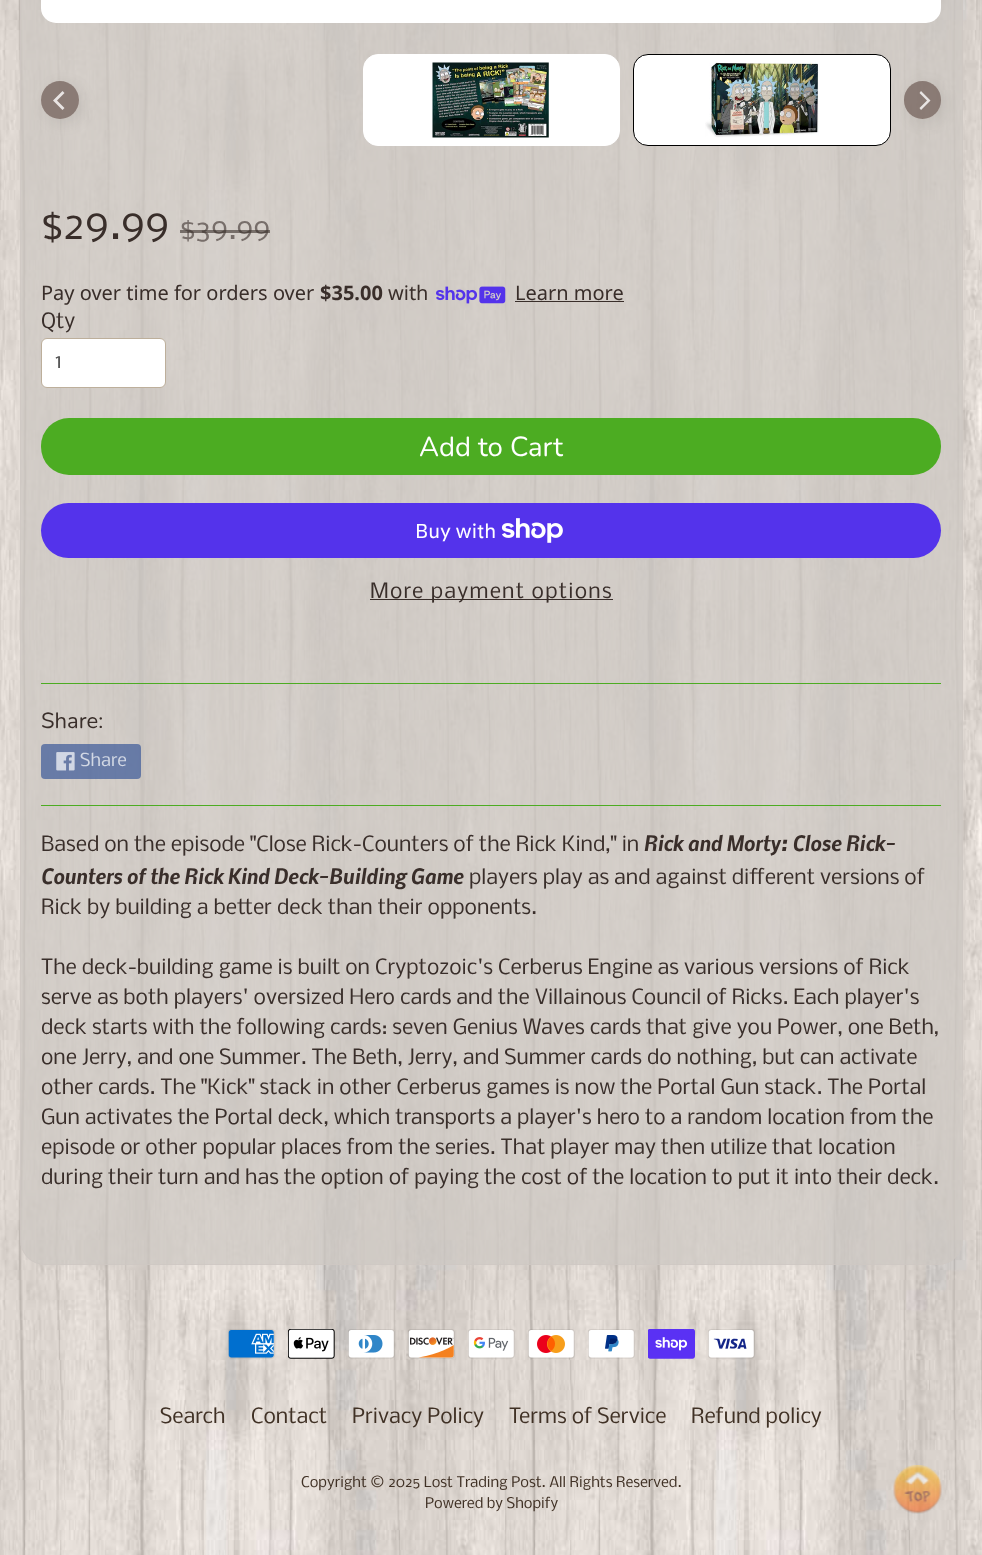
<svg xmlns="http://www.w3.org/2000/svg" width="982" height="1555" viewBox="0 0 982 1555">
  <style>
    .t1 { font: 40px Nobile; fill: #392e2a; }
    .t2 { font: 28px Nobile; fill: #776e6a; }
    .t3 { font: 20px Noto Sans; fill: #392e2a; }
    .t4 { font: bold 20px Noto Sans; fill: #392e2a; }
    .t5 { font: 20px Nobile; fill: #392e2a; }
    .t6 { font: 20px Nobile; fill: #555; }
    .t7 { font: 27.5px Nunito; fill: #fff; }
    .t8 { font: 20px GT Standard; fill: #fff; }
    .t9 { font: 20px Nobile; letter-spacing: 1.25px; fill: #392e2a; }
    .t10 { font: 22px Nunito; fill: #392e2a; }
    .t11 { font: 17px Nobile; fill: #d2d8e4; }
    .t12 { font: italic bold 20px Nobile; fill: #392e2a; }
    .t13 { font: 20px Nobile; fill: #403125; }
    .t14 { font: 14px Nobile; fill: #403125; }
  </style>
  <defs>
    <clipPath id="clip1"><path d="M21 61H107V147H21ZM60 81C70.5 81 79 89.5 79 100C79 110.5 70.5 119 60 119C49.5 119 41 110.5 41 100C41 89.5 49.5 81 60 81Z" clip-rule="evenodd"/></clipPath>
    <clipPath id="clip2"><path d="M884 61H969V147H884ZM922.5 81C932.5 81 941 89.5 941 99.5V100.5C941 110.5 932.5 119 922.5 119C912.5 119 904 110.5 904 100.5V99.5C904 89.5 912.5 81 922.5 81Z" clip-rule="evenodd"/></clipPath>
  </defs>
  <rect width="100%" height="100%" fill="#fff"/>
  <image x="0" y="0" width="982" height="1555" href="images/1.png"/>
  <rect x="20" y="-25" width="943" height="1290" rx="25" fill="#cec8c3bf"/>
  <rect x="20.5" y="-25.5" width="942" height="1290" rx="24.5" fill="none" stroke="#cec8c3b3"/>
  <rect x="41" y="-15" width="900" height="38" rx="15" fill="#fff"/>
  <g clip-path="url(#clip1)">
    <rect x="45" y="85" width="38" height="38" rx="19" fill="#00000014" filter="blur(7.5px)"/>
  </g>
  <circle cx="60" cy="100" r="19" fill="#786660cc"/>
  <path d="M53 100.5L62.5 110L64.5 108L57 100.5L64.5 93L62.5 91Z" fill="#e8e4e3"/>
  <rect x="363.5" y="54.5" width="256" height="91" rx="14.5" fill="#fff" stroke="#fff"/>
  <image x="432" y="62" width="117" height="76" href="images/2.png"/>
  <rect x="633.5" y="54.5" width="257" height="91" rx="14.5" fill="#fff" stroke="#000"/>
  <image x="705" y="62" width="114" height="76" href="images/3.png"/>
  <g clip-path="url(#clip2)">
    <rect x="908" y="85" width="37" height="38" rx="18.5" fill="#00000014" filter="blur(7.5px)"/>
  </g>
  <rect x="904" y="81" width="37" height="38" rx="18.5" fill="#786660cc"/>
  <path d="M930.5 100.5L921 91L919.5 93L927 100.5L919.5 108L921 110Z" fill="#e8e4e3"/>
  <text x="41" y="239" class="t1">$29.99</text>
  <text x="180" y="239" class="t2">$39.99</text>
  <rect x="180" y="230" width="90" height="3" fill="#392e2a99"/>
  <text x="41" y="300" class="t3">Pay over time for orders over</text>
  <text x="320" y="300" class="t4">$35.00</text>
  <text x="388" y="300" class="t3">with</text>
  <image x="436" y="286" width="70" height="18" href="images/4.png"/>
  <text x="515" y="300" class="t3">Learn more</text>
  <rect x="515" y="301" width="109" height="1" fill="#392e2a"/>
  <text x="41" y="328" class="t5">Qty</text>
  <rect x="41.5" y="338.5" width="124" height="49" rx="5.5" fill="#fff" stroke="#bdaf9b"/>
  <text x="55" y="368" class="t6">1</text>
  <rect x="41" y="418" width="900" height="57" rx="28" fill="#4cac22"/>
  <text x="419" y="456" class="t7">Add to Cart</text>
  <rect x="41" y="503" width="900" height="55" rx="27.5" fill="#5433eb"/>
  <text x="415" y="538" class="t8">Buy with</text>
  <image x="501" y="518" width="62" height="25" href="images/5.png"/>
  <rect x="370" y="599" width="243" height="1" fill="#392e2a"/>
  <text x="370" y="598" class="t9">More payment options</text>
  <rect x="41" y="683" width="900" height="1" fill="#4cac22"/>
  <text x="41" y="728" class="t10">Share:</text>
  <rect x="41" y="744" width="100" height="35" rx="4" fill="#3b5998b3"/>
  <image x="56" y="752" width="19" height="19" href="images/6.png"/>
  <text x="80" y="766" class="t11">Share</text>
  <rect x="41" y="805" width="900" height="1" fill="#4cac22"/>
  <text x="41" y="851" class="t5">Based on the episode "Close Rick-Counters of the Rick Kind," in</text>
  <text x="644" y="851" class="t12">Rick and Morty: Close Rick-</text>
  <text x="41" y="884" class="t12">Counters of the Rick Kind Deck-Building Game</text>
  <text x="469" y="884" class="t5">players play as and against different versions of</text>
  <text x="41" y="914" class="t5">Rick by building a better deck than their opponents.</text>
  <text x="41" y="974" class="t5">The deck-building game is built on Cryptozoic's Cerberus Engine as various versions of Rick</text>
  <text x="41" y="1004" class="t5">serve as both players' oversized Hero cards and the Villainous Council of Ricks. Each player's</text>
  <text x="41" y="1034" class="t5">deck starts with the following cards: seven Genius Waves cards that give you Power, one Beth,</text>
  <text x="41" y="1064" class="t5">one Jerry, and one Summer. The Beth, Jerry, and Summer cards do nothing, but can activate</text>
  <text x="41" y="1094" class="t5">other cards. The "Kick" stack in other Cerberus games is now the Portal Gun stack. The Portal</text>
  <text x="41" y="1124" class="t5">Gun activates the Portal deck, which transports a player's hero to a random location from the</text>
  <text x="41" y="1154" class="t5">episode or other popular places from the series. That player may then utilize that location</text>
  <text x="41" y="1184" class="t5">during their turn and has the option of paying the cost of the location to put it into their deck.</text>
  <image x="228" y="1329" width="47" height="30" href="images/7.png"/>
  <image x="288" y="1329" width="47" height="30" href="images/8.png"/>
  <image x="348" y="1329" width="47" height="30" href="images/9.png"/>
  <image x="408" y="1329" width="47" height="30" href="images/10.png"/>
  <image x="468" y="1329" width="47" height="30" href="images/11.png"/>
  <image x="528" y="1329" width="47" height="30" href="images/12.png"/>
  <image x="588" y="1329" width="47" height="30" href="images/13.png"/>
  <image x="648" y="1329" width="47" height="30" href="images/14.png"/>
  <image x="708" y="1329" width="47" height="30" href="images/15.png"/>
  <text x="160" y="1423" class="t13">Search</text>
  <text x="251" y="1423" class="t13">Contact</text>
  <text x="352" y="1423" class="t13">Privacy Policy</text>
  <text x="509" y="1423" class="t13">Terms of Service</text>
  <text x="691" y="1423" class="t13">Refund policy</text>
  <text x="301" y="1487" class="t14">Copyright © 2025 Lost Trading Post. All Rights Reserved.</text>
  <text x="425" y="1508" class="t14">Powered by Shopify</text>
  <image x="893" y="1465" width="49" height="49" href="images/16.png"/>
</svg>
